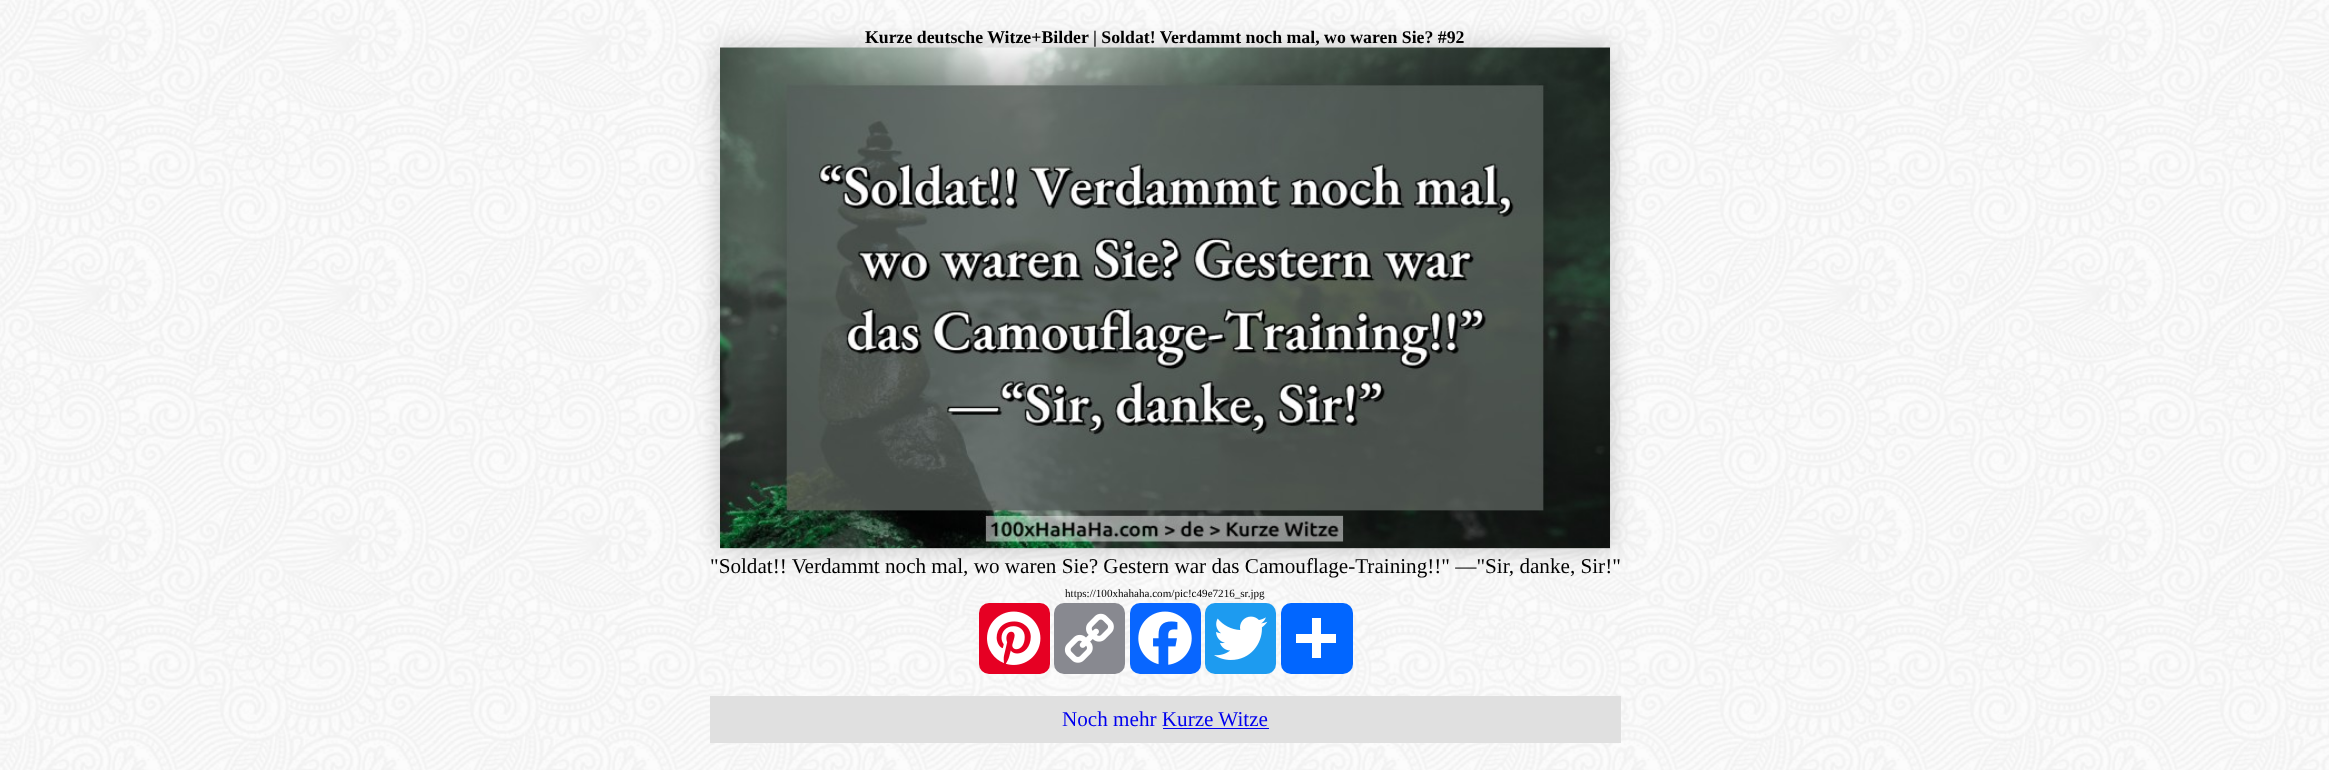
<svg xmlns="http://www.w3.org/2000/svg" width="2329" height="770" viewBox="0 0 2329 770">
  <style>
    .t1 { font: bold 17.8px Liberation Serif; fill: #000; }
    .t2 { font: 21.15px Liberation Serif; fill: #000; }
    .t3 { font: 11.1px Liberation Serif; fill: #000; }
    .t4 { font: 21.15px Liberation Serif; fill: #00e; }
  </style>
  <rect width="100%" height="100%" fill="#fff"/>
  <image x="0" y="0" width="2329" height="770" href="images/1.png"/>
  <text x="865" y="43" class="t1">Kurze deutsche Witze+Bilder | Soldat! Verdammt noch mal, wo waren Sie? #92</text>
  <rect x="720" y="48" width="890" height="501" fill="#00000033" filter="blur(13px)"/>
  <image x="720" y="47" width="890" height="502" href="images/2.png"/>
  <text x="710" y="573" class="t2">"Soldat!! Verdammt noch mal, wo waren Sie? Gestern war das Camouflage-Training!!" —"Sir, danke, Sir!"</text>
  <text x="1065" y="597" class="t3">https://100xhahaha.com/pic!c49e7216_sr.jpg</text>
  <rect x="979" y="603" width="71" height="71" rx="10" fill="#e60023"/>
  <image x="987" y="611" width="54" height="54" href="images/3.png"/>
  <rect x="1054" y="603" width="71" height="71" rx="10" fill="#888990"/>
  <image x="1064" y="613" width="50" height="50" href="images/4.png"/>
  <rect x="1130" y="603" width="71" height="71" rx="10" fill="#0866ff"/>
  <image x="1138" y="611" width="54" height="54" href="images/5.png"/>
  <rect x="1205" y="603" width="71" height="71" rx="10" fill="#1d9bf0"/>
  <image x="1214" y="616" width="54" height="44" href="images/6.png"/>
  <rect x="1281" y="603" width="72" height="71" rx="10" fill="#0166ff"/>
  <rect x="1312" y="618" width="9" height="40" fill="#fff"/>
  <rect x="1296" y="634" width="40" height="9" fill="#fff"/>
  <rect x="710" y="696" width="911" height="47" fill="#e0e0e0"/>
  <text x="1062" y="726" class="t4">Noch mehr Kurze Witze</text>
  <rect x="1163" y="728" width="106" height="1" fill="#00e"/>
</svg>
